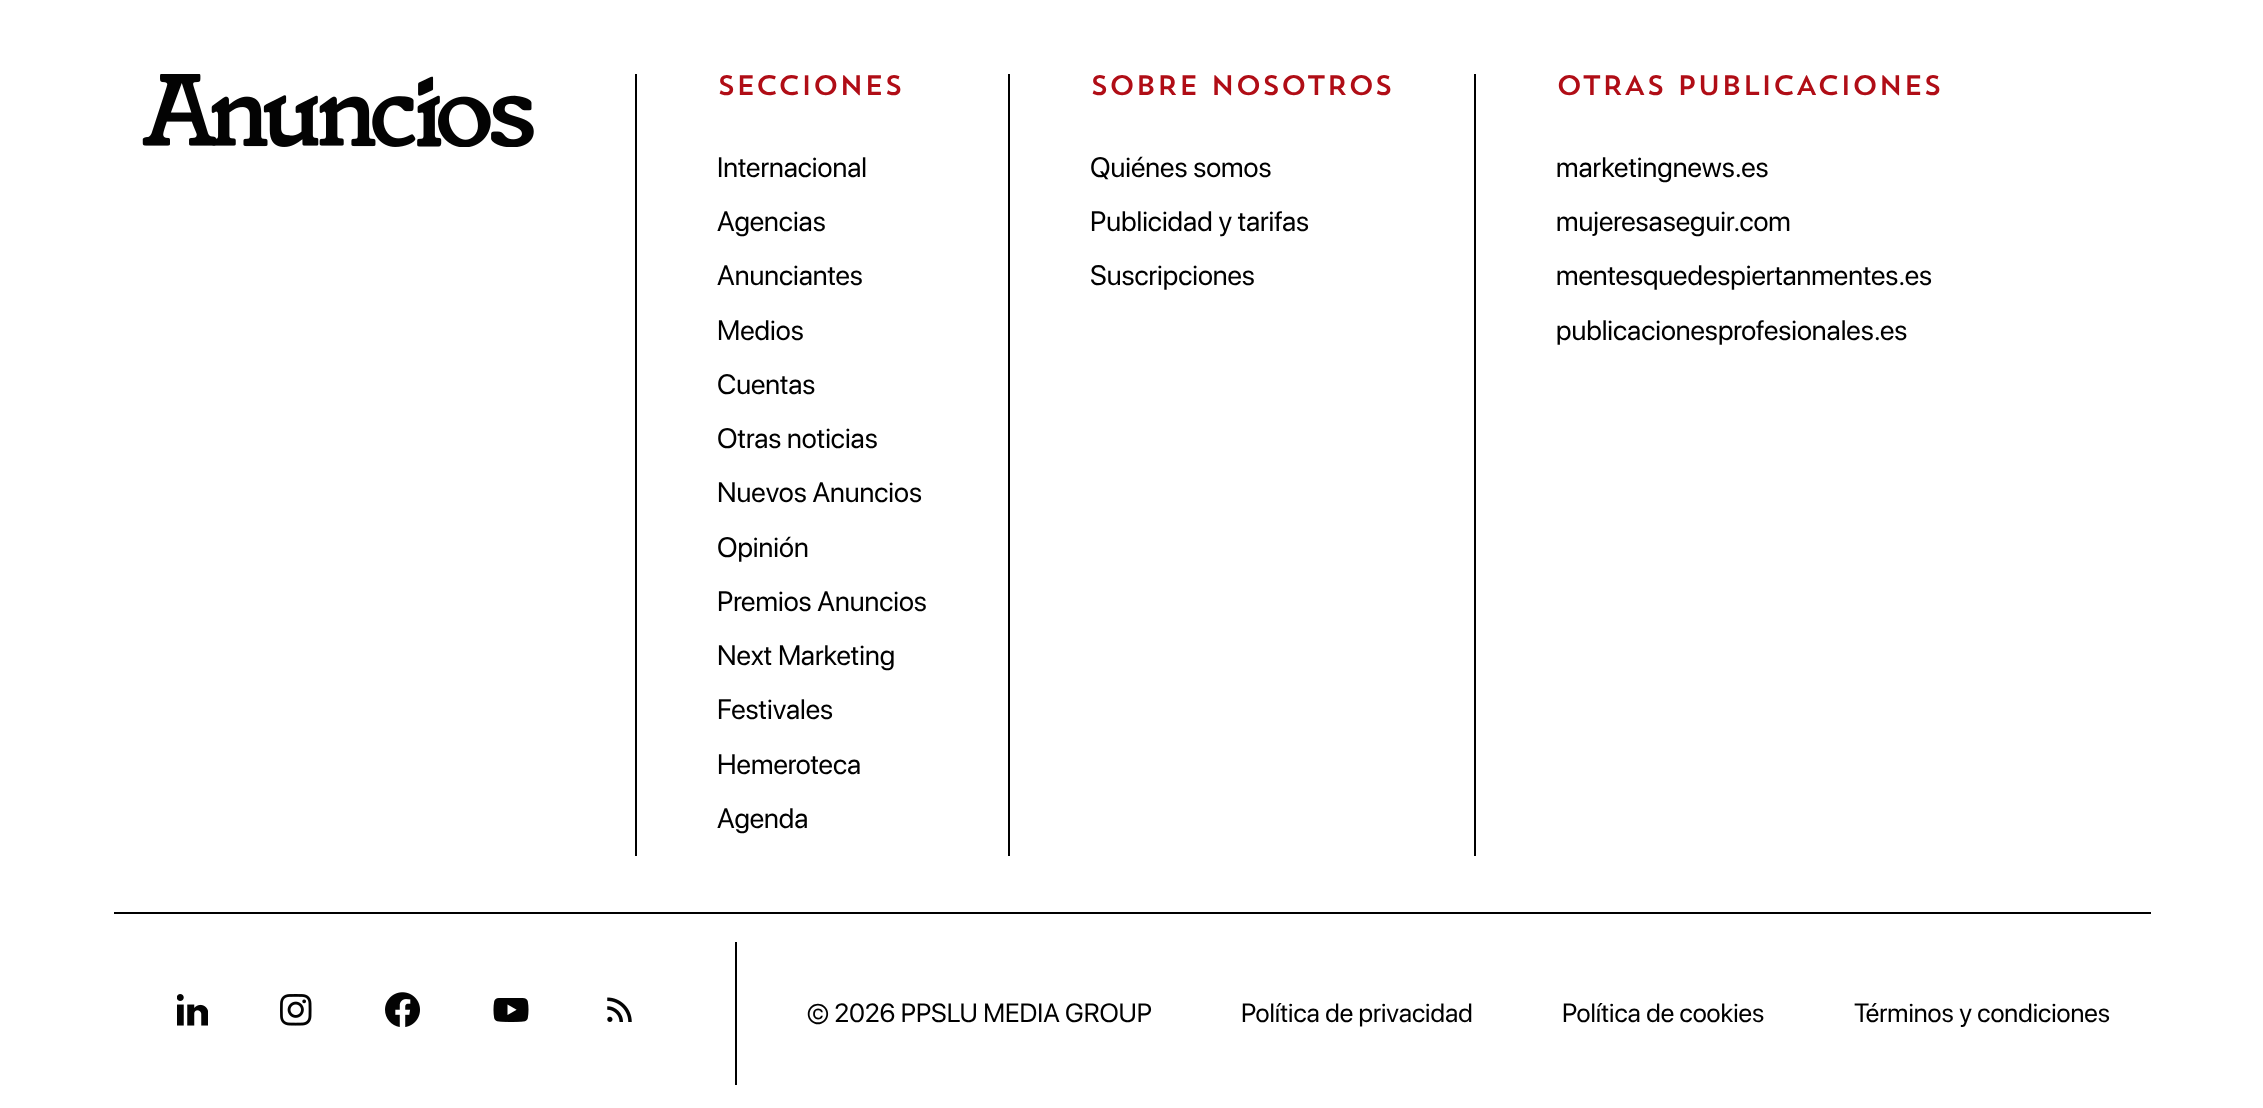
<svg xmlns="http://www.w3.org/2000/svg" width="2263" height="1108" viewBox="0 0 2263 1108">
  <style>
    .t1 { font: 200 28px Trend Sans; fill: #b00d16; }
    .t2 { font: 28px SF Pro Display; fill: #000; }
    .t3 { font: 26.25px SF Pro Display; fill: #000; }
  </style>
  <rect width="100%" height="100%" fill="#fff"/>
  <rect x="635" y="74" width="2" height="782" fill="#000"/>
  <image x="142" y="74" width="392" height="73" href="images/1.png"/>
  <rect x="1008" y="74" width="2" height="782" fill="#000"/>
  <text x="717" y="95" class="t1">SECCIONES</text>
  <text x="717" y="177" class="t2">Internacional</text>
  <text x="717" y="231" class="t2">Agencias</text>
  <text x="717" y="285" class="t2">Anunciantes</text>
  <text x="717" y="340" class="t2">Medios</text>
  <text x="717" y="394" class="t2">Cuentas</text>
  <text x="717" y="448" class="t2">Otras noticias</text>
  <text x="717" y="502" class="t2">Nuevos Anuncios</text>
  <text x="717" y="557" class="t2">Opinión</text>
  <text x="717" y="611" class="t2">Premios Anuncios</text>
  <text x="717" y="665" class="t2">Next Marketing</text>
  <text x="717" y="719" class="t2">Festivales</text>
  <text x="717" y="774" class="t2">Hemeroteca</text>
  <text x="717" y="828" class="t2">Agenda</text>
  <rect x="1474" y="74" width="2" height="782" fill="#000"/>
  <text x="1090" y="95" class="t1">SOBRE NOSOTROS</text>
  <text x="1090" y="177" class="t2">Quiénes somos</text>
  <text x="1090" y="231" class="t2">Publicidad y tarifas</text>
  <text x="1090" y="285" class="t2">Suscripciones</text>
  <text x="1556" y="95" class="t1">OTRAS PUBLICACIONES</text>
  <text x="1556" y="177" class="t2">marketingnews.es</text>
  <text x="1556" y="231" class="t2">mujeresaseguir.com</text>
  <text x="1556" y="285" class="t2">mentesquedespiertanmentes.es</text>
  <text x="1556" y="340" class="t2">publicacionesprofesionales.es</text>
  <rect x="114" y="912" width="2037" height="2" fill="#000"/>
  <image x="177" y="994" width="31" height="32" href="images/2.png"/>
  <image x="280" y="994" width="32" height="32" href="images/3.png"/>
  <image x="385" y="992" width="35" height="35" href="images/4.png"/>
  <image x="493" y="998" width="36" height="24" href="images/5.png"/>
  <image x="607" y="997" width="25" height="25" href="images/6.png"/>
  <rect x="735" y="942" width="2" height="143" fill="#000"/>
  <text x="807" y="1022" class="t3">© 2026 PPSLU MEDIA GROUP</text>
  <text x="1241" y="1022" class="t3">Política de privacidad</text>
  <text x="1562" y="1022" class="t3">Política de cookies</text>
  <text x="1854" y="1022" class="t3">Términos y condiciones</text>
</svg>
